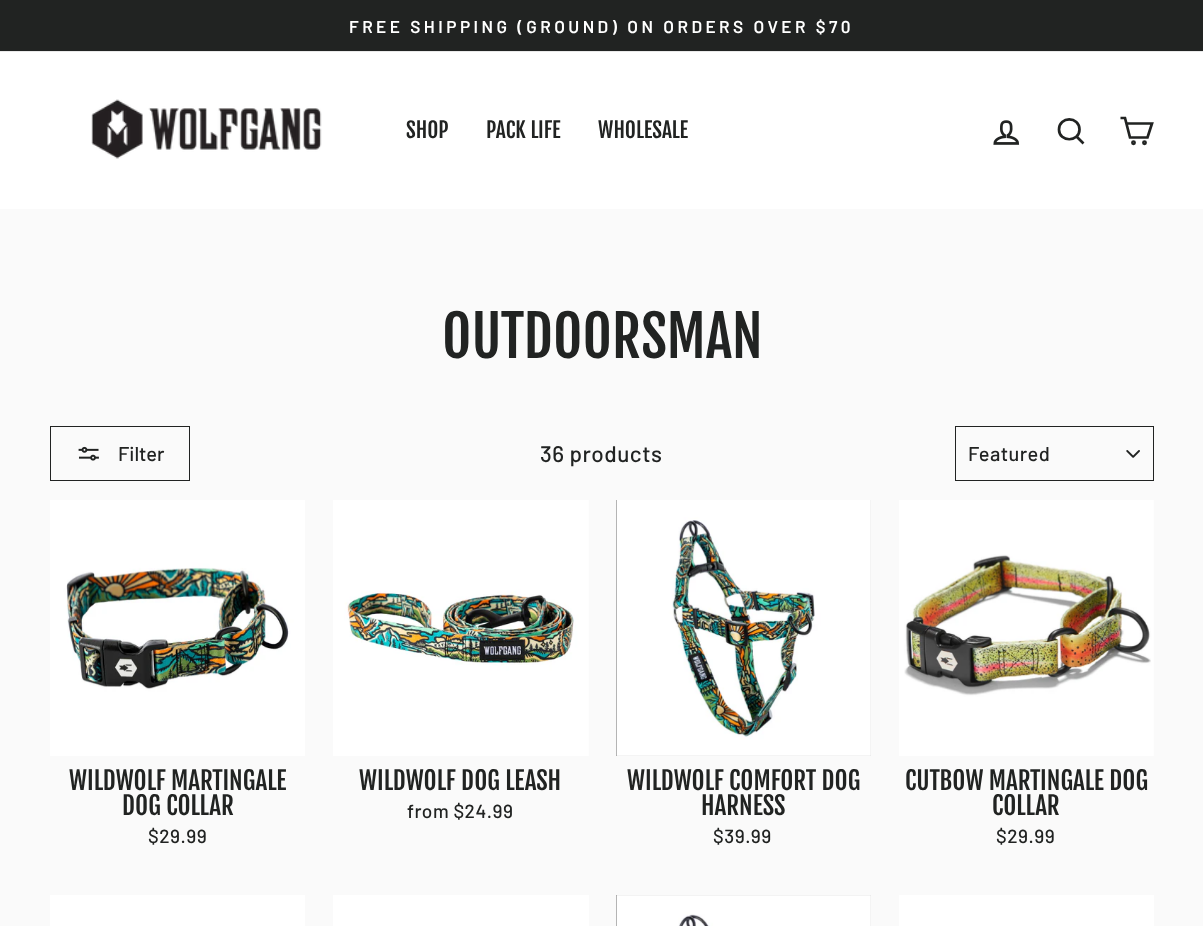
<svg xmlns="http://www.w3.org/2000/svg" width="1203" height="926" viewBox="0 0 1203 926">
  <style>
    .t1 { font: 600 17.2px Barlow; letter-spacing: 3.45px; fill: #fff; }
    .t2 { font: 21.25px Fjalla One; fill: #212322; }
    .t3 { font: 56.25px Fjalla One; fill: #212322; }
    .t4 { font: 500 20px Barlow; fill: #212322; }
    .t5 { font: 500 22.5px Barlow; letter-spacing: 0.5px; fill: #212322; }
    .t6 { font: 500 20px Barlow; letter-spacing: 0.5px; fill: #212322; }
    .t7 { font: 25px Fjalla One; fill: #212322; }
    .t8 { font: 500 19px Barlow; letter-spacing: 0.5px; fill: #212322; }
  </style>
  <rect width="100%" height="100%" fill="#fafafa"/>
  <rect x="0" y="0" width="1203" height="51" fill="#212322"/>
  <text x="349" y="33" class="t1">FREE SHIPPING (GROUND) ON ORDERS OVER $70</text>
  <rect x="0" y="52" width="1203" height="157" fill="#fff"/>
  <rect x="0" y="51" width="1203" height="1" fill="#e9e9e9"/>
  <image x="91" y="99" width="231" height="60" href="images/1.png"/>
  <text x="406" y="138" class="t2">SHOP</text>
  <text x="486" y="138" class="t2">PACK LIFE</text>
  <text x="598" y="138" class="t2">WHOLESALE</text>
  <image x="993" y="120" width="27" height="25" href="images/2.png"/>
  <path d="M1079.5 129.5C1079.5 142.5 1059 142.5 1059 129.5C1059 116 1079.5 116 1079.5 129.5ZM1083.5 143.5L1076.5 136.5" fill="none" stroke="#212322" stroke-width="2.7"/>
  <path d="M1126.5 123.5H1152L1147.5 137.5H1130L1125 118H1120.5" fill="none" stroke="#212322" stroke-width="2.7"/>
  <circle cx="1133.5" cy="142.7" r="1.1" fill="none" stroke="#212322" stroke-width="2.7"/>
  <circle cx="1144.5" cy="142.7" r="1.1" fill="none" stroke="#212322" stroke-width="2.7"/>
  <text x="442" y="358" class="t3">OUTDOORSMAN</text>
  <rect x="50.5" y="426.5" width="139" height="54" fill="none" stroke="#212322"/>
  <image x="78" y="446" width="21" height="15" href="images/3.png"/>
  <text x="118" y="461" class="t4">Filter</text>
  <text x="540" y="462" class="t5">36 products</text>
  <image x="1126" y="450" width="14" height="8" href="images/4.png"/>
  <rect x="955.5" y="426.5" width="198" height="54" fill="none" stroke="#212322"/>
  <text x="968" y="461" class="t6">Featured</text>
  <image x="50" y="500" width="255" height="256" href="images/5.png"/>
  <text x="69" y="790" class="t7">WILDWOLF MARTINGALE</text>
  <text x="122" y="815" class="t7">DOG COLLAR</text>
  <text x="148" y="843" class="t8">$29.99</text>
  <image x="333" y="500" width="256" height="256" href="images/6.png"/>
  <text x="359" y="790" class="t7">WILDWOLF DOG LEASH</text>
  <text x="407" y="818" class="t8">from $24.99</text>
  <rect x="616" y="500" width="255" height="256" fill="#212322"/>
  <image x="616" y="500" width="255" height="256" href="images/7.png"/>
  <text x="627" y="790" class="t7">WILDWOLF COMFORT DOG</text>
  <text x="701" y="815" class="t7">HARNESS</text>
  <text x="713" y="843" class="t8">$39.99</text>
  <image x="899" y="500" width="255" height="256" href="images/8.png"/>
  <text x="905" y="790" class="t7">CUTBOW MARTINGALE DOG</text>
  <text x="992" y="815" class="t7">COLLAR</text>
  <text x="996" y="843" class="t8">$29.99</text>
  <rect x="50" y="895" width="255" height="31" fill="#fff"/>
  <rect x="333" y="895" width="256" height="31" fill="#fff"/>
  <rect x="616" y="895" width="255" height="31" fill="#212322"/>
  <image x="616" y="895" width="255" height="31" href="images/9.png"/>
  <rect x="899" y="895" width="255" height="31" fill="#fff"/>
</svg>
